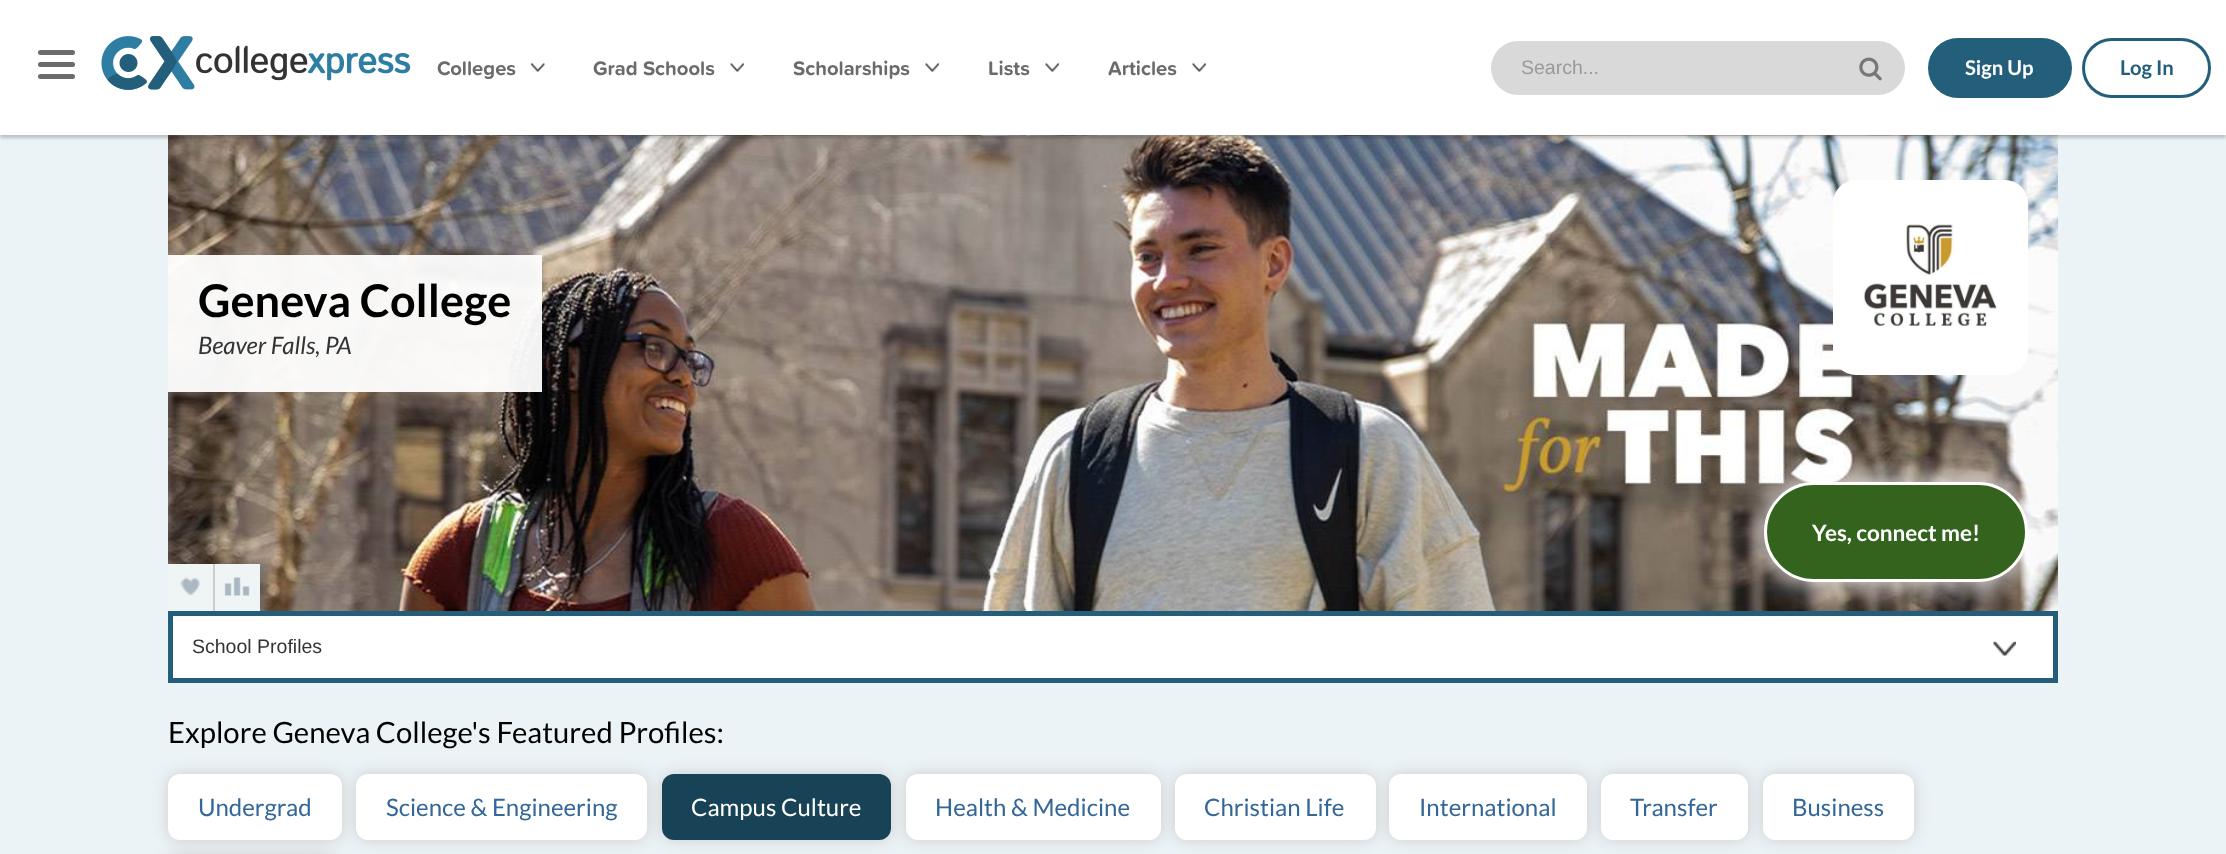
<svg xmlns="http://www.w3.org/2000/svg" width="2226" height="854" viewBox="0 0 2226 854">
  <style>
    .t1 { font: bold 20.25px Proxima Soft; fill: #6b6b6b; }
    .t2 { font: 19.5px Liberation Sans; fill: #999; }
    .t3 { font: bold 20.25px Lato; fill: #fff; }
    .t4 { font: bold 20.25px Lato; fill: #235f7b; }
    .t5 { font: bold 45px Lato; fill: #000; }
    .t6 { font: italic 24px Lato; fill: #333; }
    .t7 { font: bold 22.5px Lato; fill: #fff; }
    .t8 { font: 19.5px Liberation Sans; fill: #333; }
    .t9 { font: 29.25px Lato; fill: #000; }
    .t10 { font: 24px Lato; fill: #369; }
    .t11 { font: 24px Lato; fill: #fff; }
  </style>
  <rect width="100%" height="100%" fill="#ebf3f7"/>
  <image x="168" y="135" width="1890" height="476" href="images/6.png"/>
  <rect x="0" y="3" width="2226" height="135" fill="#00000033" filter="blur(1.5px)"/>
  <rect x="0" y="0" width="2226" height="135" fill="#fff"/>
  <rect x="38" y="50" width="37" height="5" rx="2.5" fill="#6b6b6b"/>
  <rect x="38" y="62" width="37" height="5" rx="2.5" fill="#6b6b6b"/>
  <rect x="38" y="74" width="37" height="5" rx="2.5" fill="#6b6b6b"/>
  <image x="101" y="36" width="310" height="54" href="images/1.png"/>
  <text x="437" y="75" class="t1">Colleges</text>
  <image x="531" y="63" width="14" height="9" href="images/2.png"/>
  <text x="593" y="75" class="t1">Grad Schools</text>
  <image x="730" y="63" width="14" height="9" href="images/3.png"/>
  <text x="793" y="75" class="t1">Scholarships</text>
  <image x="925" y="63" width="14" height="9" href="images/3.png"/>
  <text x="988" y="75" class="t1">Lists</text>
  <image x="1045" y="63" width="14" height="9" href="images/4.png"/>
  <text x="1108" y="75" class="t1">Articles</text>
  <image x="1192" y="63" width="14" height="9" href="images/4.png"/>
  <rect x="1491" y="41" width="414" height="54" rx="27" fill="#d9d9d9"/>
  <text x="1521" y="74" class="t2">Search...</text>
  <image x="1859" y="57" width="23" height="24" href="images/5.png"/>
  <rect x="1928" y="38" width="144" height="60" rx="30" fill="#235f7b"/>
  <text x="1965" y="75" class="t3">Sign Up</text>
  <rect x="2083.5" y="39.5" width="126" height="57" rx="28.5" fill="none" stroke="#235f7b" stroke-width="3"/>
  <text x="2120" y="75" class="t4">Log In</text>
  <rect x="168" y="255" width="374" height="137" fill="#fffffff2"/>
  <text x="198" y="317" class="t5">Geneva College</text>
  <text x="198" y="354" class="t6">Beaver Falls, PA</text>
  <rect x="1833" y="180" width="195" height="195" rx="23" fill="#fff"/>
  <image x="1863" y="224" width="134" height="103" href="images/7.png"/>
  <rect x="1764" y="482" width="264" height="100" rx="50" fill="#fff" filter="blur(15px)"/>
  <rect x="1765.5" y="483.5" width="261" height="97" rx="48.5" fill="#33631d" stroke="#fff" stroke-width="3"/>
  <text x="1812" y="541" class="t7">Yes, connect me!</text>
  <rect x="168" y="564" width="45" height="47" fill="#eff5f5"/>
  <image x="180" y="577" width="20" height="19" href="images/8.png"/>
  <rect x="215" y="564" width="45" height="47" fill="#eff5f5"/>
  <image x="224" y="577" width="26" height="19" href="images/9.png"/>
  <rect x="213" y="564" width="2" height="47" fill="#ccc"/>
  <rect x="173" y="616" width="1880" height="62" fill="#fff"/>
  <image x="1993" y="641" width="23" height="15" href="images/10.png"/>
  <rect x="170.5" y="613.5" width="1885" height="67" fill="none" stroke="#235f7b" stroke-width="5"/>
  <text x="192" y="653" class="t8">School Profiles</text>
  <text x="168" y="743" class="t9">Explore Geneva College's Featured Profiles:</text>
  <rect x="168" y="774" width="174" height="66" rx="12" fill="#ccc" filter="blur(7.5px)"/>
  <rect x="168" y="774" width="174" height="66" rx="12" fill="#fff"/>
  <text x="198" y="816" class="t10">Undergrad</text>
  <rect x="356" y="774" width="291" height="66" rx="12" fill="#ccc" filter="blur(7.5px)"/>
  <rect x="356" y="774" width="291" height="66" rx="12" fill="#fff"/>
  <text x="386" y="816" class="t10">Science &amp; Engineering</text>
  <rect x="662" y="774" width="229" height="66" rx="12" fill="#ccc" filter="blur(7.5px)"/>
  <rect x="662" y="774" width="229" height="66" rx="12" fill="#184256"/>
  <text x="691" y="816" class="t11">Campus Culture</text>
  <rect x="906" y="774" width="255" height="66" rx="12" fill="#ccc" filter="blur(7.5px)"/>
  <rect x="906" y="774" width="255" height="66" rx="12" fill="#fff"/>
  <text x="935" y="816" class="t10">Health &amp; Medicine</text>
  <rect x="1175" y="774" width="201" height="66" rx="12" fill="#ccc" filter="blur(7.5px)"/>
  <rect x="1175" y="774" width="201" height="66" rx="12" fill="#fff"/>
  <text x="1204" y="816" class="t10">Christian Life</text>
  <rect x="1389" y="774" width="198" height="66" rx="12" fill="#ccc" filter="blur(7.5px)"/>
  <rect x="1389" y="774" width="198" height="66" rx="12" fill="#fff"/>
  <text x="1419" y="816" class="t10">International</text>
  <rect x="1601" y="774" width="147" height="66" rx="12" fill="#ccc" filter="blur(7.5px)"/>
  <rect x="1601" y="774" width="147" height="66" rx="12" fill="#fff"/>
  <text x="1630" y="816" class="t10">Transfer</text>
  <rect x="1763" y="774" width="151" height="66" rx="12" fill="#ccc" filter="blur(7.5px)"/>
  <rect x="1763" y="774" width="151" height="66" rx="12" fill="#fff"/>
  <text x="1792" y="816" class="t10">Business</text>
  <rect x="168" y="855" width="167" height="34" rx="12" fill="#ccc" filter="blur(7.5px)"/>
</svg>
